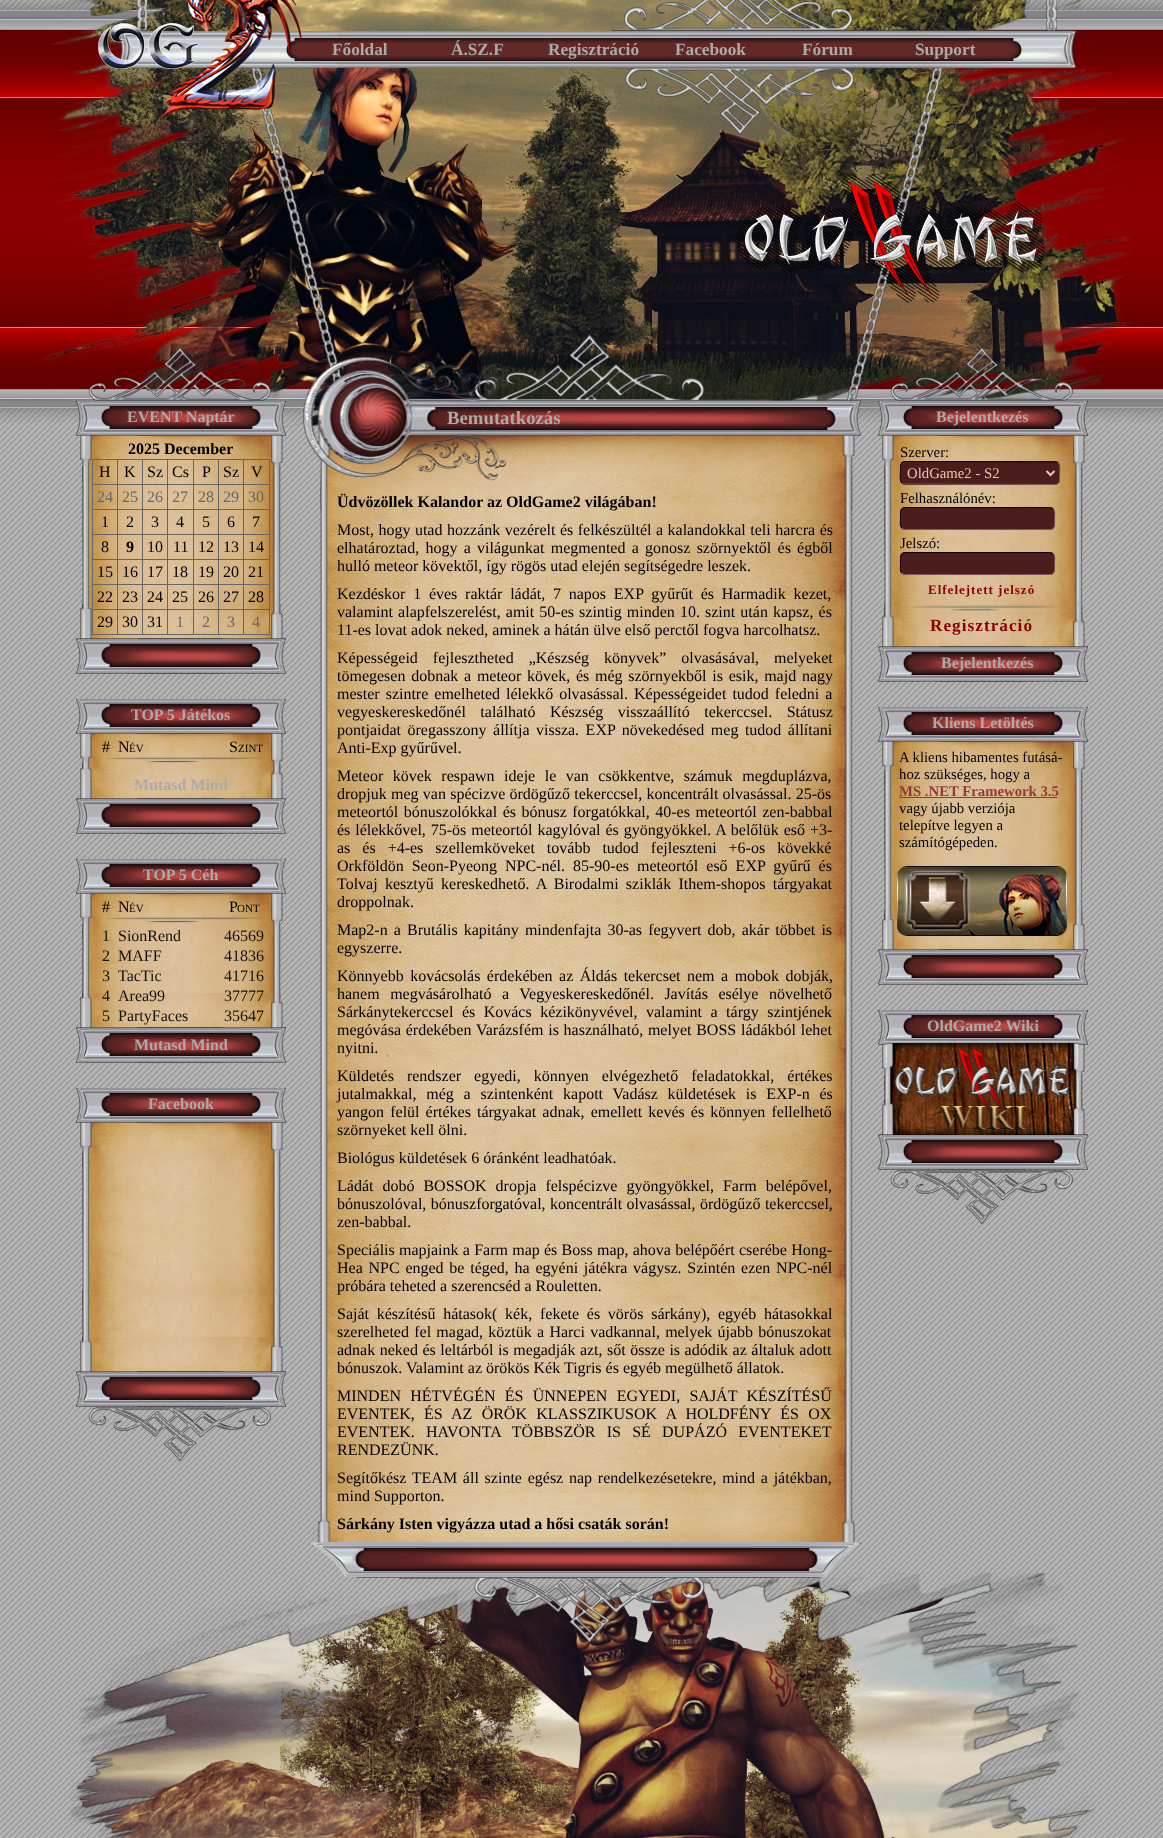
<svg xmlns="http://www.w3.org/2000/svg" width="1163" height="1838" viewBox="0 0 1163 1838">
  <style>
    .t1 { font: bold 17.25px Liberation Serif; fill: #aaa; }
    .t2 { font: bold 16px Liberation Serif; fill: #aaa; }
    .t3 { font: bold 16px Liberation Serif; fill: #000; }
    .t4 { font: 16px Liberation Serif; fill: #000; }
    .t5 { font: 16px Liberation Serif; fill: #666; }
    .t6 { font: 11px Liberation Serif; fill: #000; }
    .t7 { font: 16px Liberation Serif; fill: #111; }
    .t8 { font: bold 18.75px Liberation Serif; fill: #aaa; }
    .t9 { font: 14.75px Liberation Serif; fill: #000; }
    .t10 { font: 14.75px Liberation Serif; fill: #e4cca4; }
    .t11 { font: bold 13px Liberation Serif; letter-spacing: 1px; fill: #8b0000; }
    .t12 { font: bold 17.25px Liberation Serif; letter-spacing: 1px; fill: #8b0000; }
    .t13 { font: bold 14.75px Liberation Serif; fill: #963838; }
  </style>
  <rect width="100%" height="100%" fill="#fff"/>
  <image x="0" y="0" width="1163" height="1838" href="images/1.png"/>
  <image x="45" y="0" width="1081" height="428" href="images/3.png"/>
  <image x="33" y="0" width="1098" height="433" href="images/2.png"/>
  <image x="119" y="0" width="958" height="405" href="images/4.png"/>
  <image x="98" y="0" width="204" height="121" href="images/5.png"/>
  <text x="332" y="55" class="t1">Főoldal</text>
  <text x="451" y="55" class="t1">Á.SZ.F</text>
  <text x="548" y="55" class="t1">Regisztráció</text>
  <text x="675" y="55" class="t1">Facebook</text>
  <text x="802" y="55" class="t1">Fórum</text>
  <text x="915" y="55" class="t1">Support</text>
  <image x="736" y="173" width="309" height="130" href="images/6.png"/>
  <image x="88" y="347" width="183" height="54" href="images/7.png"/>
  <image x="76" y="401" width="210" height="65" href="images/8.png"/>
  <text x="127" y="422" class="t2">EVENT Naptár</text>
  <image x="82" y="466" width="199" height="138" href="images/9.png"/>
  <text x="128" y="454" class="t3">2025 December</text>
  <rect x="243" y="459" width="27" height="1" fill="#666"/>
  <rect x="243" y="484" width="27" height="1" fill="#666"/>
  <rect x="243" y="509" width="27" height="1" fill="#666"/>
  <rect x="243" y="534" width="27" height="1" fill="#666"/>
  <rect x="243" y="559" width="27" height="1" fill="#666"/>
  <rect x="243" y="584" width="27" height="1" fill="#666"/>
  <image x="76" y="604" width="210" height="70" href="images/10.png"/>
  <rect x="243" y="609" width="27" height="1" fill="#666"/>
  <rect x="269" y="609" width="1" height="26" fill="#666"/>
  <rect x="243" y="634" width="27" height="1" fill="#666"/>
  <rect x="243" y="609" width="1" height="26" fill="#666"/>
  <rect x="218" y="609" width="26" height="1" fill="#666"/>
  <rect x="243" y="584" width="1" height="26" fill="#666"/>
  <rect x="218" y="584" width="26" height="1" fill="#666"/>
  <rect x="243" y="559" width="1" height="26" fill="#666"/>
  <rect x="218" y="559" width="26" height="1" fill="#666"/>
  <rect x="243" y="534" width="1" height="26" fill="#666"/>
  <rect x="218" y="534" width="26" height="1" fill="#666"/>
  <rect x="243" y="509" width="1" height="26" fill="#666"/>
  <rect x="218" y="509" width="26" height="1" fill="#666"/>
  <rect x="243" y="484" width="1" height="26" fill="#666"/>
  <rect x="218" y="484" width="26" height="1" fill="#666"/>
  <rect x="243" y="459" width="1" height="26" fill="#666"/>
  <rect x="218" y="459" width="26" height="1" fill="#666"/>
  <rect x="218" y="634" width="26" height="1" fill="#666"/>
  <rect x="218" y="609" width="1" height="26" fill="#666"/>
  <rect x="193" y="609" width="26" height="1" fill="#666"/>
  <rect x="218" y="584" width="1" height="26" fill="#666"/>
  <rect x="193" y="584" width="26" height="1" fill="#666"/>
  <rect x="218" y="559" width="1" height="26" fill="#666"/>
  <rect x="193" y="559" width="26" height="1" fill="#666"/>
  <rect x="218" y="534" width="1" height="26" fill="#666"/>
  <rect x="193" y="534" width="26" height="1" fill="#666"/>
  <rect x="218" y="509" width="1" height="26" fill="#666"/>
  <rect x="193" y="509" width="26" height="1" fill="#666"/>
  <rect x="218" y="484" width="1" height="26" fill="#666"/>
  <rect x="193" y="484" width="26" height="1" fill="#666"/>
  <rect x="218" y="459" width="1" height="26" fill="#666"/>
  <rect x="193" y="459" width="26" height="1" fill="#666"/>
  <rect x="193" y="634" width="26" height="1" fill="#666"/>
  <rect x="193" y="609" width="1" height="26" fill="#666"/>
  <rect x="167" y="609" width="27" height="1" fill="#666"/>
  <rect x="193" y="584" width="1" height="26" fill="#666"/>
  <rect x="167" y="584" width="27" height="1" fill="#666"/>
  <rect x="193" y="559" width="1" height="26" fill="#666"/>
  <rect x="167" y="559" width="27" height="1" fill="#666"/>
  <rect x="193" y="534" width="1" height="26" fill="#666"/>
  <rect x="167" y="534" width="27" height="1" fill="#666"/>
  <rect x="193" y="509" width="1" height="26" fill="#666"/>
  <rect x="167" y="509" width="27" height="1" fill="#666"/>
  <rect x="193" y="484" width="1" height="26" fill="#666"/>
  <rect x="167" y="484" width="27" height="1" fill="#666"/>
  <rect x="193" y="459" width="1" height="26" fill="#666"/>
  <rect x="167" y="459" width="27" height="1" fill="#666"/>
  <rect x="167" y="634" width="27" height="1" fill="#666"/>
  <rect x="167" y="609" width="1" height="26" fill="#666"/>
  <rect x="142" y="609" width="26" height="1" fill="#666"/>
  <rect x="167" y="584" width="1" height="26" fill="#666"/>
  <rect x="142" y="584" width="26" height="1" fill="#666"/>
  <rect x="167" y="559" width="1" height="26" fill="#666"/>
  <rect x="142" y="559" width="26" height="1" fill="#666"/>
  <rect x="167" y="534" width="1" height="26" fill="#666"/>
  <rect x="142" y="534" width="26" height="1" fill="#666"/>
  <rect x="167" y="509" width="1" height="26" fill="#666"/>
  <rect x="142" y="509" width="26" height="1" fill="#666"/>
  <rect x="167" y="484" width="1" height="26" fill="#666"/>
  <rect x="142" y="484" width="26" height="1" fill="#666"/>
  <rect x="167" y="459" width="1" height="26" fill="#666"/>
  <rect x="142" y="459" width="26" height="1" fill="#666"/>
  <rect x="142" y="634" width="26" height="1" fill="#666"/>
  <rect x="142" y="609" width="1" height="26" fill="#666"/>
  <rect x="117" y="609" width="26" height="1" fill="#666"/>
  <rect x="142" y="584" width="1" height="26" fill="#666"/>
  <rect x="117" y="584" width="26" height="1" fill="#666"/>
  <rect x="142" y="559" width="1" height="26" fill="#666"/>
  <rect x="117" y="559" width="26" height="1" fill="#666"/>
  <rect x="142" y="534" width="1" height="26" fill="#666"/>
  <rect x="117" y="534" width="26" height="1" fill="#666"/>
  <rect x="142" y="509" width="1" height="26" fill="#666"/>
  <rect x="117" y="509" width="26" height="1" fill="#666"/>
  <rect x="142" y="484" width="1" height="26" fill="#666"/>
  <rect x="117" y="484" width="26" height="1" fill="#666"/>
  <rect x="142" y="459" width="1" height="26" fill="#666"/>
  <rect x="117" y="459" width="26" height="1" fill="#666"/>
  <rect x="117" y="634" width="26" height="1" fill="#666"/>
  <rect x="117" y="609" width="1" height="26" fill="#666"/>
  <rect x="92" y="609" width="26" height="1" fill="#666"/>
  <rect x="117" y="584" width="1" height="26" fill="#666"/>
  <rect x="92" y="584" width="26" height="1" fill="#666"/>
  <rect x="117" y="559" width="1" height="26" fill="#666"/>
  <rect x="92" y="559" width="26" height="1" fill="#666"/>
  <rect x="117" y="534" width="1" height="26" fill="#666"/>
  <rect x="92" y="534" width="26" height="1" fill="#666"/>
  <rect x="117" y="509" width="1" height="26" fill="#666"/>
  <rect x="92" y="509" width="26" height="1" fill="#666"/>
  <rect x="117" y="484" width="1" height="26" fill="#666"/>
  <rect x="92" y="484" width="26" height="1" fill="#666"/>
  <rect x="117" y="459" width="1" height="26" fill="#666"/>
  <rect x="92" y="459" width="26" height="1" fill="#666"/>
  <rect x="92" y="634" width="26" height="1" fill="#666"/>
  <rect x="92" y="609" width="1" height="26" fill="#666"/>
  <rect x="92" y="584" width="1" height="26" fill="#666"/>
  <rect x="92" y="559" width="1" height="26" fill="#666"/>
  <rect x="92" y="534" width="1" height="26" fill="#666"/>
  <rect x="92" y="509" width="1" height="26" fill="#666"/>
  <rect x="92" y="484" width="1" height="26" fill="#666"/>
  <rect x="92" y="459" width="1" height="26" fill="#666"/>
  <text x="99" y="477" class="t4">H</text>
  <text x="124" y="477" class="t4">K</text>
  <text x="147" y="477" class="t4">Sz</text>
  <text x="172" y="477" class="t4">Cs</text>
  <text x="202" y="477" class="t4">P</text>
  <text x="223" y="477" class="t4">Sz</text>
  <rect x="269" y="584" width="1" height="26" fill="#666"/>
  <rect x="269" y="559" width="1" height="26" fill="#666"/>
  <rect x="269" y="534" width="1" height="26" fill="#666"/>
  <rect x="269" y="509" width="1" height="26" fill="#666"/>
  <rect x="269" y="484" width="1" height="26" fill="#666"/>
  <rect x="269" y="459" width="1" height="26" fill="#666"/>
  <text x="251" y="477" class="t4">V</text>
  <text x="97" y="502" class="t5">24</text>
  <text x="122" y="502" class="t5">25</text>
  <text x="147" y="502" class="t5">26</text>
  <text x="172" y="502" class="t5">27</text>
  <text x="198" y="502" class="t5">28</text>
  <text x="223" y="502" class="t5">29</text>
  <text x="248" y="502" class="t5">30</text>
  <text x="101" y="527" class="t4">1</text>
  <text x="126" y="527" class="t4">2</text>
  <text x="151" y="527" class="t4">3</text>
  <text x="176" y="527" class="t4">4</text>
  <text x="202" y="527" class="t4">5</text>
  <text x="227" y="527" class="t4">6</text>
  <text x="252" y="527" class="t4">7</text>
  <text x="101" y="552" class="t4">8</text>
  <text x="126" y="552" class="t3">9</text>
  <text x="147" y="552" class="t4">10</text>
  <text x="173" y="552" class="t4">11</text>
  <text x="198" y="552" class="t4">12</text>
  <text x="223" y="552" class="t4">13</text>
  <text x="248" y="552" class="t4">14</text>
  <text x="97" y="577" class="t4">15</text>
  <text x="122" y="577" class="t4">16</text>
  <text x="147" y="577" class="t4">17</text>
  <text x="172" y="577" class="t4">18</text>
  <text x="198" y="577" class="t4">19</text>
  <text x="223" y="577" class="t4">20</text>
  <text x="248" y="577" class="t4">21</text>
  <text x="97" y="602" class="t4">22</text>
  <text x="122" y="602" class="t4">23</text>
  <text x="147" y="602" class="t4">24</text>
  <text x="172" y="602" class="t4">25</text>
  <text x="198" y="602" class="t4">26</text>
  <text x="223" y="602" class="t4">27</text>
  <text x="248" y="602" class="t4">28</text>
  <text x="97" y="627" class="t4">29</text>
  <text x="122" y="627" class="t4">30</text>
  <text x="147" y="627" class="t4">31</text>
  <text x="176" y="627" class="t5">1</text>
  <text x="202" y="627" class="t5">2</text>
  <text x="227" y="627" class="t5">3</text>
  <text x="252" y="627" class="t5">4</text>
  <image x="76" y="699" width="210" height="65" href="images/11.png"/>
  <text x="131" y="720" class="t2">TOP 5 Játékos</text>
  <text x="102" y="752" class="t4">#</text>
  <text x="118" y="752" class="t4">N</text>
  <text x="129" y="752" class="t6">ÉV</text>
  <text x="229" y="752" class="t4">S</text>
  <text x="238" y="752" class="t6">ZINT</text>
  <image x="98" y="756" width="165" height="7" href="images/12.png"/>
  <image x="76" y="764" width="210" height="70" href="images/13.png"/>
  <text x="134" y="790" class="t2">Mutasd Mind</text>
  <image x="76" y="859" width="210" height="65" href="images/14.png"/>
  <text x="143" y="880" class="t2">TOP 5 Céh</text>
  <image x="82" y="924" width="199" height="69" href="images/15.png"/>
  <text x="102" y="912" class="t4">#</text>
  <text x="118" y="912" class="t4">N</text>
  <text x="129" y="912" class="t6">ÉV</text>
  <text x="229" y="912" class="t4">P</text>
  <text x="237" y="912" class="t6">ONT</text>
  <image x="98" y="916" width="165" height="7" href="images/12.png"/>
  <text x="102" y="941" class="t7">1</text>
  <text x="118" y="941" class="t7">SionRend</text>
  <text x="224" y="941" class="t7">46569</text>
  <text x="102" y="961" class="t7">2</text>
  <text x="118" y="961" class="t7">MAFF</text>
  <text x="224" y="961" class="t7">41836</text>
  <text x="102" y="981" class="t7">3</text>
  <text x="118" y="981" class="t7">TacTic</text>
  <text x="224" y="981" class="t7">41716</text>
  <image x="76" y="993" width="210" height="70" href="images/16.png"/>
  <text x="102" y="1001" class="t7">4</text>
  <text x="118" y="1001" class="t7">Area99</text>
  <text x="224" y="1001" class="t7">37777</text>
  <text x="102" y="1021" class="t7">5</text>
  <text x="118" y="1021" class="t7">PartyFaces</text>
  <text x="224" y="1021" class="t7">35647</text>
  <text x="134" y="1050" class="t2">Mutasd Mind</text>
  <image x="76" y="1088" width="210" height="65" href="images/17.png"/>
  <text x="148" y="1109" class="t2">Facebook</text>
  <image x="82" y="1153" width="199" height="184" href="images/18.png"/>
  <image x="76" y="1337" width="210" height="70" href="images/19.png"/>
  <image x="88" y="1407" width="183" height="54" href="images/20.png"/>
  <image x="303" y="334" width="559" height="176" href="images/21.png"/>
  <text x="447" y="424" class="t8">Bemutatkozás</text>
  <image x="320" y="510" width="533" height="983" href="images/22.png"/>
  <text x="337" y="507" class="t3">Üdvözöllek Kalandor az OldGame2 világában!</text>
  <text x="337" y="535" word-spacing="0.5" class="t4">Most, hogy utad hozzánk vezérelt és felkészültél a kalandokkal teli harcra és</text>
  <text x="337" y="553" word-spacing="2.25" class="t4">elhatároztad, hogy a világunkat megmented a gonosz szörnyektől és égből</text>
  <text x="337" y="571" class="t4">hulló meteor kövektől, így rögös utad elején segítségedre leszek.</text>
  <text x="337" y="599" word-spacing="3.75" class="t4">Kezdéskor 1 éves raktár ládát, 7 napos EXP gyűrűt és Harmadik kezet,</text>
  <text x="337" y="617" word-spacing="1.1" class="t4">valamint alapfelszerelést, amit 50-es szintig minden 10. szint után kapsz, és</text>
  <text x="337" y="635" class="t4">11-es lovat adok neked, aminek a hátán ülve első perctől fogva harcolhatsz.</text>
  <text x="337" y="663" word-spacing="11" class="t4">Képességeid fejlesztheted „Készség könyvek” olvasásával, melyeket</text>
  <text x="337" y="681" word-spacing="1.75" class="t4">tömegesen dobnak a meteor kövek, és még szörnyekből is esik, majd nagy</text>
  <text x="337" y="699" word-spacing="2" class="t4">mester szintre emelheted lélekkő olvasással. Képességeidet tudod feledni a</text>
  <text x="337" y="717" word-spacing="10.5" class="t4">vegyeskereskedőnél található Készség visszaállító tekerccsel. Státusz</text>
  <text x="337" y="735" word-spacing="2.5" class="t4">pontjaidat öregasszony állítja vissza. EXP növekedésed meg tudod állítani</text>
  <text x="337" y="753" class="t4">Anti-Exp gyűrűvel.</text>
  <text x="337" y="781" word-spacing="5.5" class="t4">Meteor kövek respawn ideje le van csökkentve, számuk megduplázva,</text>
  <text x="337" y="799" word-spacing="0.25" class="t4">dropjuk meg van spécizve ördögűző tekerccsel, koncentrált olvasással. 25-ös</text>
  <text x="337" y="817" word-spacing="1.5" class="t4">meteortól bónuszolókkal és bónusz forgatókkal, 40-es meteortól zen-babbal</text>
  <text x="337" y="835" word-spacing="0.9" class="t4">és lélekkővel, 75-ös meteortól kagylóval és gyöngyökkel. A belőlük eső +3-</text>
  <text x="337" y="853" word-spacing="8" class="t4">as és +4-es szellemköveket tovább tudod fejleszteni +6-os kövekké</text>
  <text x="337" y="871" word-spacing="4" class="t4">Orkföldön Seon-Pyeong NPC-nél. 85-90-es meteortól eső EXP gyűrű és</text>
  <text x="337" y="889" word-spacing="3.25" class="t4">Tolvaj kesztyű kereskedhető. A Birodalmi sziklák Ithem-shopos tárgyakat</text>
  <text x="337" y="907" class="t4">droppolnak.</text>
  <text x="337" y="935" word-spacing="2.1" class="t4">Map2-n a Brutális kapitány mindenfajta 30-as fegyvert dob, akár többet is</text>
  <text x="337" y="953" class="t4">egyszerre.</text>
  <text x="337" y="981" word-spacing="2.5" class="t4">Könnyebb kovácsolás érdekében az Áldás tekercset nem a mobok dobják,</text>
  <text x="337" y="999" word-spacing="6.5" class="t4">hanem megvásárolható a Vegyeskereskedőnél. Javítás esélye növelhető</text>
  <text x="337" y="1017" word-spacing="4.5" class="t4">Sárkánytekerccsel és Kovács kézikönyvével, valamint a tárgy szintjének</text>
  <text x="337" y="1035" word-spacing="0.75" class="t4">megóvása érdekében Varázsfém is használható, melyet BOSS ládákból lehet</text>
  <text x="337" y="1053" class="t4">nyitni.</text>
  <text x="337" y="1081" word-spacing="9" class="t4">Küldetés rendszer egyedi, könnyen elvégezhető feladatokkal, értékes</text>
  <text x="337" y="1099" word-spacing="5.75" class="t4">jutalmakkal, még a szintenként kapott Vadász küldetések is EXP-n és</text>
  <text x="337" y="1117" word-spacing="2.1" class="t4">yangon felül értékes tárgyakat adnak, emellett kevés és könnyen fellelhető</text>
  <text x="337" y="1135" class="t4">szörnyeket kell ölni.</text>
  <text x="337" y="1163" class="t4">Biológus küldetések 6 óránként leadhatóak.</text>
  <text x="337" y="1191" word-spacing="5" class="t4">Ládát dobó BOSSOK dropja felspécizve gyöngyökkel, Farm belépővel,</text>
  <text x="337" y="1209" word-spacing="0.5" class="t4">bónuszolóval, bónuszforgatóval, koncentrált olvasással, ördögűző tekerccsel,</text>
  <text x="337" y="1227" class="t4">zen-babbal.</text>
  <text x="337" y="1255" word-spacing="0.25" class="t4">Speciális mapjaink a Farm map és Boss map, ahova belépőért cserébe Hong-</text>
  <text x="337" y="1273" word-spacing="1.75" class="t4">Hea NPC enged be téged, ha egyéni játékra vágysz. Szintén ezen NPC-nél</text>
  <text x="337" y="1291" class="t4">próbára teheted a szerencséd a Rouletten.</text>
  <text x="337" y="1319" word-spacing="3.75" class="t4">Saját készítésű hátasok( kék, fekete és vörös sárkány), egyéb hátasokkal</text>
  <text x="337" y="1337" word-spacing="1.25" class="t4">szerelheted fel magad, köztük a Harci vadkannal, melyek újabb bónuszokat</text>
  <text x="337" y="1355" word-spacing="0.5" class="t4">adnak neked és leltárból is megadják azt, sőt össze is adódik az általuk adott</text>
  <text x="337" y="1373" class="t4">bónuszok. Valamint az örökös Kék Tigris és egyéb megülhető állatok.</text>
  <text x="337" y="1401" word-spacing="5.25" class="t4">MINDEN HÉTVÉGÉN ÉS ÜNNEPEN EGYEDI, SAJÁT KÉSZÍTÉSŰ</text>
  <text x="337" y="1419" word-spacing="5.25" class="t4">EVENTEK, ÉS AZ ÖRÖK KLASSZIKUSOK A HOLDFÉNY ÉS OX</text>
  <text x="337" y="1437" word-spacing="7.25" class="t4">EVENTEK. HAVONTA TÖBBSZÖR IS SÉ DUPÁZÓ EVENTEKET</text>
  <text x="337" y="1455" class="t4">RENDEZÜNK.</text>
  <text x="337" y="1483" word-spacing="1.75" class="t4">Segítőkész TEAM áll szinte egész nap rendelkezésetekre, mind a játékban,</text>
  <image x="68" y="1573" width="1027" height="265" href="images/39.png"/>
  <image x="310" y="1493" width="551" height="150" href="images/23.png"/>
  <text x="337" y="1501" class="t4">mind Supporton.</text>
  <text x="337" y="1529" class="t3">Sárkány Isten vigyázza utad a hősi csaták során!</text>
  <image x="890" y="347" width="183" height="54" href="images/24.png"/>
  <image x="878" y="401" width="210" height="65" href="images/25.png"/>
  <text x="936" y="422" class="t2">Bejelentkezés</text>
  <image x="884" y="466" width="199" height="146" href="images/26.png"/>
  <text x="900" y="457" class="t9">Szerver:</text>
  <rect x="900" y="461" width="160" height="24" rx="5" fill="#4c1d1d"/>
  <path d="M1058 463C1061 465.5 1059.5 472 1059.5 475.5C1059.5 479 1060 484.5 1055 484.5L903.5 484L902 483" fill="none" stroke="#7c5858"/>
  <path d="M902 483C899 480.5 900.5 474 900.5 470.5C900.5 467 900 461.5 905 461.5L1056.5 462L1058 463" fill="none" stroke="#120202"/>
  <path d="M1046.5 471L1050.5 475L1054.5 471" fill="none" stroke="#e4cca4" stroke-width="2"/>
  <text x="907" y="478" class="t10">OldGame2 - S2</text>
  <text x="900" y="503" class="t9">Felhasználónév:</text>
  <rect x="900" y="507" width="155" height="23" rx="5" fill="#4c1d1d"/>
  <path d="M1053 509C1055.5 511 1054.5 515.5 1054.5 518.5C1054.5 522 1055.5 529.5 1050 529.5H904.5L902 528" fill="none" stroke="#7c5858"/>
  <path d="M902 528C899.5 526 900.5 521.5 900.5 518.5C900.5 515 899.5 507.5 905 507.5H1050.5L1053 509" fill="none" stroke="#120202"/>
  <text x="900" y="548" class="t9">Jelszó:</text>
  <rect x="900" y="552" width="155" height="23" rx="5" fill="#4c1d1d"/>
  <path d="M1053 554C1055.5 556 1054.5 560.5 1054.5 563.5C1054.5 567 1055.5 574.5 1050 574.5H904.5L902 573" fill="none" stroke="#7c5858"/>
  <path d="M902 573C899.5 571 900.5 566.5 900.5 563.5C900.5 560 899.5 552.5 905 552.5H1050.5L1053 554" fill="none" stroke="#120202"/>
  <text x="928" y="594" class="t11">Elfelejtett jelszó</text>
  <image x="904" y="605" width="157" height="6" href="images/27.png"/>
  <image x="878" y="612" width="210" height="70" href="images/28.png"/>
  <text x="930" y="631" class="t12">Regisztráció</text>
  <text x="941" y="668" class="t2">Bejelentkezés</text>
  <image x="878" y="707" width="210" height="65" href="images/29.png"/>
  <text x="932" y="728" class="t2">Kliens Letöltés</text>
  <image x="884" y="772" width="199" height="143" href="images/30.png"/>
  <text x="899" y="762" class="t9">A kliens hibamentes futásá-</text>
  <text x="899" y="779" class="t9">hoz szükséges, hogy a</text>
  <text x="899" y="796" class="t13">MS .NET Framework 3.5</text>
  <rect x="899" y="797" width="158" height="1" fill="#963838"/>
  <text x="899" y="813" class="t9">vagy újabb verziója</text>
  <text x="899" y="830" class="t9">telepítve legyen a</text>
  <text x="899" y="847" class="t9">számítógépeden.</text>
  <image x="878" y="915" width="210" height="70" href="images/32.png"/>
  <image x="897" y="866" width="170" height="70" href="images/31.png"/>
  <image x="878" y="1010" width="210" height="65" href="images/33.png"/>
  <text x="927" y="1031" class="t2">OldGame2 Wiki</text>
  <image x="884" y="1075" width="199" height="25" href="images/34.png"/>
  <image x="878" y="1100" width="210" height="70" href="images/37.png"/>
  <image x="887" y="1043" width="191" height="92" href="images/35.png"/>
  <image x="894" y="1046" width="176" height="89" href="images/36.png"/>
  <image x="890" y="1170" width="183" height="54" href="images/38.png"/>
</svg>
